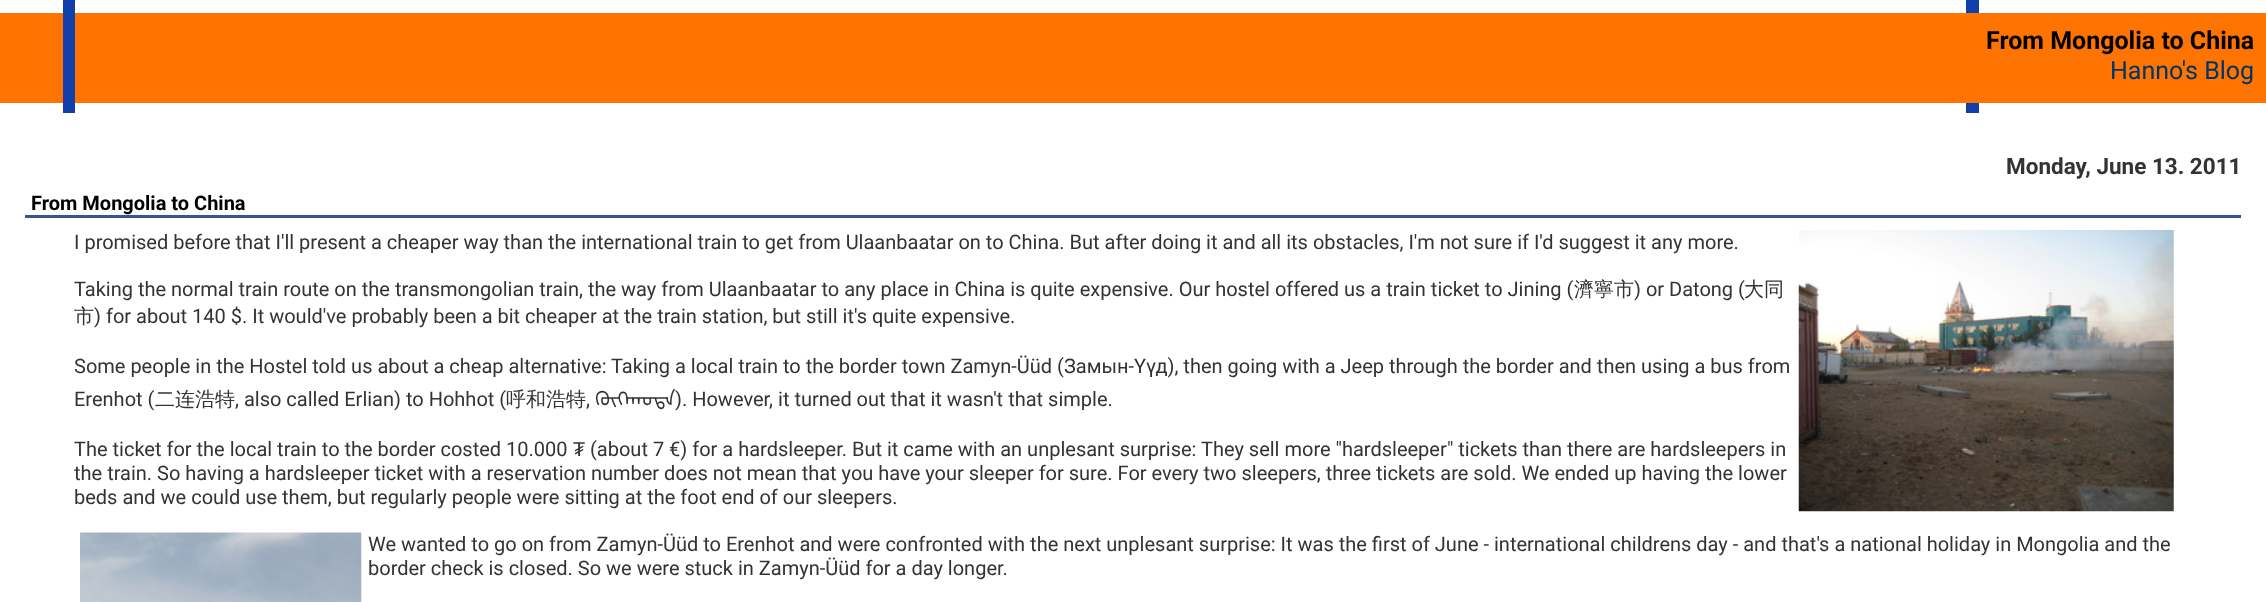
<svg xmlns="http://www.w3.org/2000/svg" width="2266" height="602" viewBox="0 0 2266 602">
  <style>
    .t1 { font: bold 25px Roboto; fill: #000; }
    .t2 { font: 25px Roboto; fill: #036; }
    .t3 { font: bold 22.5px Roboto; fill: #333; }
    .t4 { font: bold 20px Roboto; fill: #000; }
    .t5 { font: 20px Roboto; fill: #333; }
    .t6 { font: 500 20px WenQuanYi Zen Hei; fill: #333; }
    .t7 { font: 20px Noto Sans Mongolian; fill: #333; }
    .t8 { font: 20px Liberation Sans; fill: #333; }
  </style>
  <rect width="100%" height="100%" fill="#fff"/>
  <rect x="1966" y="0" width="13" height="113" fill="#1240ab"/>
  <rect x="0" y="13" width="2266" height="90" fill="#ff7400"/>
  <rect x="63" y="0" width="12" height="113" fill="#1240ab"/>
  <text x="1986" y="49" class="t1">From Mongolia to China</text>
  <text x="2110" y="79" class="t2">Hanno's Blog</text>
  <text x="2006" y="174" class="t3">Monday, June 13. 2011</text>
  <rect x="25" y="215" width="2216" height="3" fill="#36558c"/>
  <text x="31" y="210" class="t4">From Mongolia to China</text>
  <text x="74" y="249" class="t5">I promised before that I'll present a cheaper way than the international train to get from Ulaanbaatar on to China. But after doing it and all its obstacles, I'm not sure if I'd suggest it any more.</text>
  <image x="1798" y="230" width="376" height="282" href="images/1.png"/>
  <text x="74" y="296" class="t5">Taking the normal train route on the transmongolian train, the way from Ulaanbaatar to any place in China is quite expensive. Our hostel offered us a train ticket to Jining (</text>
  <text x="1574" y="296" class="t6">濟寧市</text>
  <text x="1634" y="296" class="t5">) or Datong (</text>
  <text x="1744" y="296" class="t6">大同</text>
  <text x="74" y="323" class="t6">市</text>
  <text x="94" y="323" class="t5">) for about 140 $. It would've probably been a bit cheaper at the train station, but still it's quite expensive.</text>
  <text x="74" y="373" class="t5">Some people in the Hostel told us about a cheap alternative: Taking a local train to the border town Zamyn-Üüd (Замын-Үүд), then going with a Jeep through the border and then using a bus from</text>
  <text x="74" y="406" class="t5">Erenhot (</text>
  <text x="155" y="406" class="t6">二连浩特</text>
  <text x="235" y="406" class="t5">, also called Erlian) to Hohhot (</text>
  <text x="506" y="406" class="t6">呼和浩特</text>
  <text x="586" y="406" class="t5">,</text>
  <text x="595" y="406" class="t7">ᠬᠥᠬᠡᠬᠣᠲᠠ</text>
  <text x="675" y="406" class="t5">). However, it turned out that it wasn't that simple.</text>
  <text x="74" y="456" class="t5">The ticket for the local train to the border costed 10.000</text>
  <text x="573" y="456" class="t8">₮</text>
  <text x="590" y="456" class="t5">(about 7 €) for a hardsleeper. But it came with an unplesant surprise: They sell more "hardsleeper" tickets than there are hardsleepers in</text>
  <text x="74" y="480" class="t5">the train. So having a hardsleeper ticket with a reservation number does not mean that you have your sleeper for sure. For every two sleepers, three tickets are sold. We ended up having the lower</text>
  <text x="74" y="504" class="t5">beds and we could use them, but regularly people were sitting at the foot end of our sleepers.</text>
  <image x="80" y="532" width="282" height="70" href="images/2.png"/>
  <text x="368" y="551" class="t5">We wanted to go on from Zamyn-Üüd to Erenhot and were confronted with the next unplesant surprise: It was the first of June - international childrens day - and that's a national holiday in Mongolia and the</text>
  <text x="368" y="575" class="t5">border check is closed. So we were stuck in Zamyn-Üüd for a day longer.</text>
</svg>
